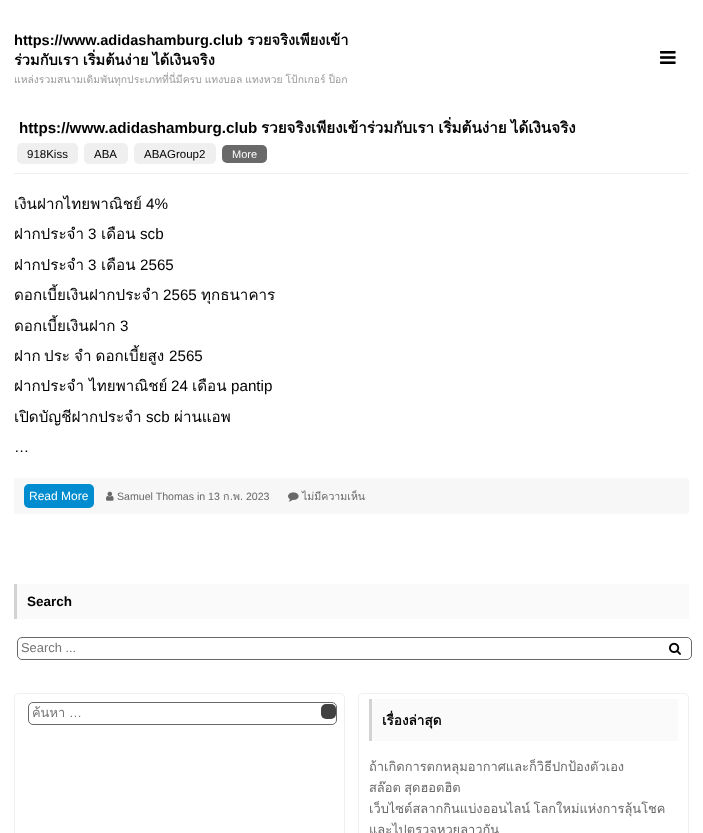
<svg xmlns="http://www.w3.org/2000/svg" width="703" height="833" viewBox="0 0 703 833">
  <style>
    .t1 { font: bold 14.6px Liberation Sans; fill: #000; }
    .t2 { font: bold 14.6px Loma; fill: #000; }
    .t3 { font: 10.35px Loma; fill: #999; }
    .t4 { font: bold 15.2px Liberation Sans; fill: #000; }
    .t5 { font: bold 15.2px Loma; fill: #000; }
    .t6 { font: 11.5px Liberation Sans; fill: #000; }
    .t7 { font: 11px Liberation Sans; fill: #fff; }
    .t8 { font: 15.2px Loma; fill: #000; }
    .t9 { font: 15.2px Liberation Sans; fill: #000; }
    .t10 { font: 12px Liberation Sans; fill: #fff; }
    .t11 { font: 10.6px Liberation Sans; fill: #696969; }
    .t12 { font: 10.6px Loma; fill: #696969; }
    .t13 { font: bold 13.5px Liberation Sans; fill: #000; }
    .t14 { font: 12.9px Liberation Sans; fill: #757575; }
    .t15 { font: 12.9px Loma; fill: #757575; }
    .t16 { font: bold 13.5px Loma; fill: #000; }
    .t17 { font: 12.9px Loma; fill: #696969; }
  </style>
  <defs>
    <clipPath id="clip1"><rect x="32" y="702" width="288" height="21"/></clipPath>
  </defs>
  <rect width="100%" height="100%" fill="#fff"/>
  <text x="14" y="45" class="t1">https://www.adidashamburg.club</text>
  <text x="247" y="45" class="t2">รวยจริงเพียงเข้า</text>
  <text x="14" y="65" word-spacing="-1" class="t2">ร่วมกับเรา เริ่มต้นง่าย ได้เงินจริง</text>
  <text x="14" y="83" word-spacing="-0.5" class="t3">แหล่งรวมสนามเดิมพันทุกประเภทที่นี่มีครบ แทงบอล แทงหวย โป้กเกอร์ ป็อก</text>
  <image x="660" y="51" width="16" height="13" href="images/1.png"/>
  <rect x="14" y="173" width="675" height="1" fill="#efefef"/>
  <text x="19" y="133" class="t4">https://www.adidashamburg.club</text>
  <text x="261" y="133" word-spacing="-1" class="t5">รวยจริงเพียงเข้าร่วมกับเรา เริ่มต้นง่าย ได้เงินจริง</text>
  <rect x="17" y="143" width="61" height="21" rx="5" fill="#efefef"/>
  <text x="27" y="158" class="t6">918Kiss</text>
  <rect x="84" y="143" width="44" height="21" rx="5" fill="#efefef"/>
  <text x="94" y="158" class="t6">ABA</text>
  <rect x="134" y="143" width="82" height="21" rx="5" fill="#efefef"/>
  <text x="144" y="158" class="t6">ABAGroup2</text>
  <rect x="222" y="145" width="45" height="18" rx="5" fill="#696969"/>
  <text x="232" y="158" class="t7">More</text>
  <text x="14" y="209" class="t8">เงินฝากไทยพาณิชย์</text>
  <text x="146" y="209" class="t9">4%</text>
  <text x="14" y="239" class="t8">ฝากประจํา</text>
  <text x="88" y="239" class="t9">3</text>
  <text x="101" y="239" class="t8">เดือน</text>
  <text x="140" y="239" class="t9">scb</text>
  <text x="14" y="270" class="t8">ฝากประจำ</text>
  <text x="88" y="270" class="t9">3</text>
  <text x="101" y="270" class="t8">เดือน</text>
  <text x="140" y="270" class="t9">2565</text>
  <text x="14" y="300" class="t8">ดอกเบี้ยเงินฝากประจํา</text>
  <text x="163" y="300" class="t9">2565</text>
  <text x="201" y="300" class="t8">ทุกธนาคาร</text>
  <text x="14" y="331" class="t8">ดอกเบี้ยเงินฝาก</text>
  <text x="120" y="331" class="t9">3</text>
  <text x="14" y="361" class="t8">ฝาก</text>
  <text x="44" y="361" word-spacing="-1" class="t8">ประ จํา ดอกเบี้ยสูง</text>
  <text x="169" y="361" class="t9">2565</text>
  <text x="14" y="391" class="t8">ฝากประจํา ไทยพาณิชย์</text>
  <text x="171" y="391" class="t9">24</text>
  <text x="192" y="391" class="t8">เดือน</text>
  <text x="231" y="391" class="t9">pantip</text>
  <text x="14" y="422" class="t8">เปิดบัญชีฝากประจํา</text>
  <text x="146" y="422" class="t9">scb</text>
  <text x="174" y="422" class="t8">ผ่านแอพ</text>
  <text x="14" y="452" class="t9">…</text>
  <rect x="14" y="478" width="675" height="36" rx="2" fill="#f7f7f7"/>
  <rect x="24" y="484" width="70" height="24" rx="5" fill="#008cce"/>
  <text x="29" y="500" class="t10">Read More</text>
  <image x="106" y="491" width="8" height="10" href="images/2.png"/>
  <text x="117" y="500" class="t11">Samuel Thomas in 13</text>
  <text x="223" y="500" class="t12">ก</text>
  <text x="230" y="500" class="t11">.</text>
  <text x="233" y="500" class="t12">พ</text>
  <text x="240" y="500" class="t11">. 2023</text>
  <image x="288" y="492" width="11" height="10" href="images/3.png"/>
  <text x="302" y="500" class="t12">ไม่มีความเห็น</text>
  <rect x="17" y="584" width="672" height="35" fill="#fafafa"/>
  <rect x="14" y="584" width="3" height="35" fill="#d3d3d3"/>
  <text x="27" y="606" class="t13">Search</text>
  <rect x="17.5" y="637.5" width="674" height="22" rx="4.5" fill="none" stroke="#696969"/>
  <text x="21" y="652" class="t14">Search ...</text>
  <image x="669" y="642" width="12" height="13" href="images/4.png"/>
  <rect x="14.5" y="693.5" width="330" height="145" rx="4.5" fill="none" stroke="#efefef"/>
  <rect x="28.5" y="702.5" width="308" height="22" rx="4.5" fill="none" stroke="#696969"/>
  <g clip-path="url(#clip1)">
    <text x="32" y="717" class="t15">ค้นหา</text>
  </g>
  <text x="69" y="717" class="t14">…</text>
  <rect x="321" y="704" width="15" height="15" rx="5" fill="#424242"/>
  <rect x="358.5" y="693.5" width="330" height="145" rx="4.5" fill="none" stroke="#efefef"/>
  <rect x="372" y="699" width="306" height="42" fill="#fafafa"/>
  <rect x="369" y="699" width="3" height="42" fill="#d3d3d3"/>
  <text x="382" y="725" class="t16">เรื่องล่าสุด</text>
  <text x="369" y="771" class="t17">ถ้าเกิดการตกหลุมอากาศและก็วิธีปกป้องตัวเอง</text>
  <text x="369" y="792" word-spacing="-1" class="t17">สล๊อต สุดฮอตฮิต</text>
  <text x="369" y="813" word-spacing="-1" class="t17">เว็บไซต์สลากกินแบ่งออนไลน์ โลกใหม่แห่งการลุ้นโชค</text>
  <text x="369" y="834" class="t17">และไปตรวจหวยลาวกัน</text>
</svg>
